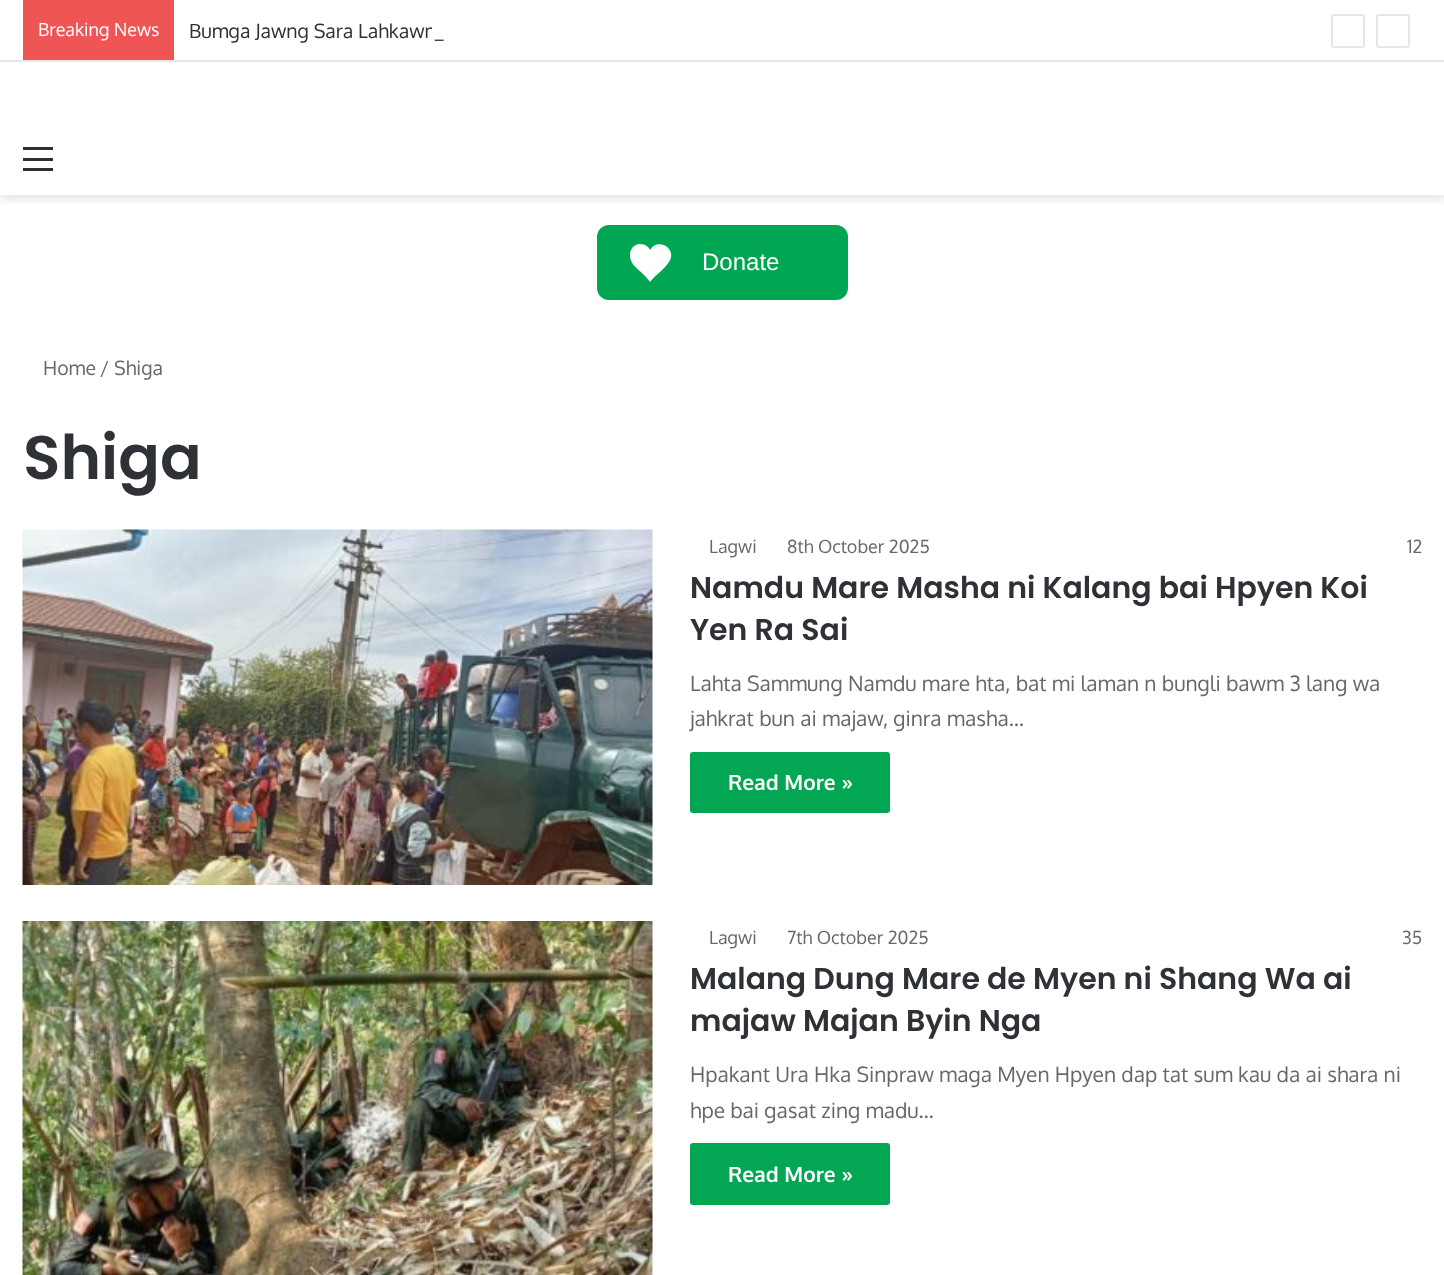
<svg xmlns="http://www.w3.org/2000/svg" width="1444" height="1275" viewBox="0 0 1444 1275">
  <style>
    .t1 { font: 18px Oxygen; fill: #fff; }
    .t2 { font: 19.5px Oxygen; fill: #2e3136; }
    .t3 { font: 24px Liberation Sans; fill: #fff; }
    .t4 { font: 19.5px Oxygen; fill: #686868; }
    .t5 { font: 600 61.5px Poppins; fill: #2e3136; }
    .t6 { font: 18px Oxygen; fill: #686868; }
    .t7 { font: 600 30px Poppins; fill: #2e3136; }
    .t8 { font: 21px Oxygen; fill: #686868; }
    .t9 { font: bold 21px Oxygen; fill: #fff; }
  </style>
  <defs>
    <clipPath id="clip1"><rect x="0" y="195" width="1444" height="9"/></clipPath>
  </defs>
  <rect width="100%" height="100%" fill="#fff"/>
  <g clip-path="url(#clip1)">
    <rect x="0" y="66" width="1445" height="134" fill="#0000001a" filter="blur(5px)"/>
  </g>
  <rect x="0" y="60" width="1444" height="2" fill="#e6e6e6"/>
  <rect x="23" y="0" width="151" height="60" fill="#f05555"/>
  <text x="38" y="36" class="t1">Breaking News</text>
  <text x="189" y="38" class="t2">Bumga Jawng Sara Lahkawn</text>
  <rect x="432" y="27" width="3" height="11" fill="#fff"/>
  <text x="434" y="38" class="t2">_</text>
  <rect x="1332" y="15" width="32" height="32" rx="2" fill="none" stroke="#e6e6e6" stroke-width="2"/>
  <rect x="1377" y="15" width="32" height="32" rx="2" fill="none" stroke="#e6e6e6" stroke-width="2"/>
  <rect x="23" y="158" width="30" height="3" fill="#2c2f34"/>
  <rect x="23" y="147" width="30" height="3" fill="#2c2f34"/>
  <rect x="23" y="168" width="30" height="3" fill="#2c2f34"/>
  <rect x="597" y="225" width="251" height="75" rx="12" fill="#00a651"/>
  <path d="M640 244C634 244 630 249 630 255C630 267 642 270 650 282C655 275 664 270 669 262C678 248 657 237 650 250C649 247 645 244 640 244Z" fill="#fff"/>
  <text x="702" y="270" class="t3">Donate</text>
  <text x="43" y="375" class="t4">Home</text>
  <text x="100" y="375" class="t4">/</text>
  <text x="114" y="375" class="t4">Shiga</text>
  <text x="23" y="479" class="t5">Shiga</text>
  <image x="22" y="529" width="631" height="356" href="images/1.png"/>
  <text x="709" y="553" class="t6">Lagwi</text>
  <text x="787" y="553" class="t6">8th October 2025</text>
  <text x="1407" y="553" class="t6">12</text>
  <text x="690" y="598" class="t7">Namdu Mare Masha ni Kalang bai Hpyen Koi</text>
  <text x="690" y="640" class="t7">Yen Ra Sai</text>
  <text x="690" y="691" class="t8">Lahta Sammung Namdu mare hta, bat mi laman n bungli bawm 3 lang wa</text>
  <text x="690" y="726" class="t8">jahkrat bun ai majaw, ginra masha…</text>
  <rect x="690" y="752" width="200" height="61" rx="3" fill="#03a753"/>
  <text x="728" y="790" class="t9">Read More »</text>
  <image x="22" y="921" width="631" height="354" href="images/2.png"/>
  <text x="709" y="944" class="t6">Lagwi</text>
  <text x="787" y="944" class="t6">7th October 2025</text>
  <text x="1402" y="944" class="t6">35</text>
  <text x="690" y="989" class="t7">Malang Dung Mare de Myen ni Shang Wa ai</text>
  <text x="690" y="1031" class="t7">majaw Majan Byin Nga</text>
  <text x="690" y="1082" class="t8">Hpakant Ura Hka Sinpraw maga Myen Hpyen dap tat sum kau da ai shara ni</text>
  <text x="690" y="1118" class="t8">hpe bai gasat zing madu…</text>
  <rect x="690" y="1143" width="200" height="62" rx="3" fill="#03a753"/>
  <text x="728" y="1182" class="t9">Read More »</text>
</svg>
